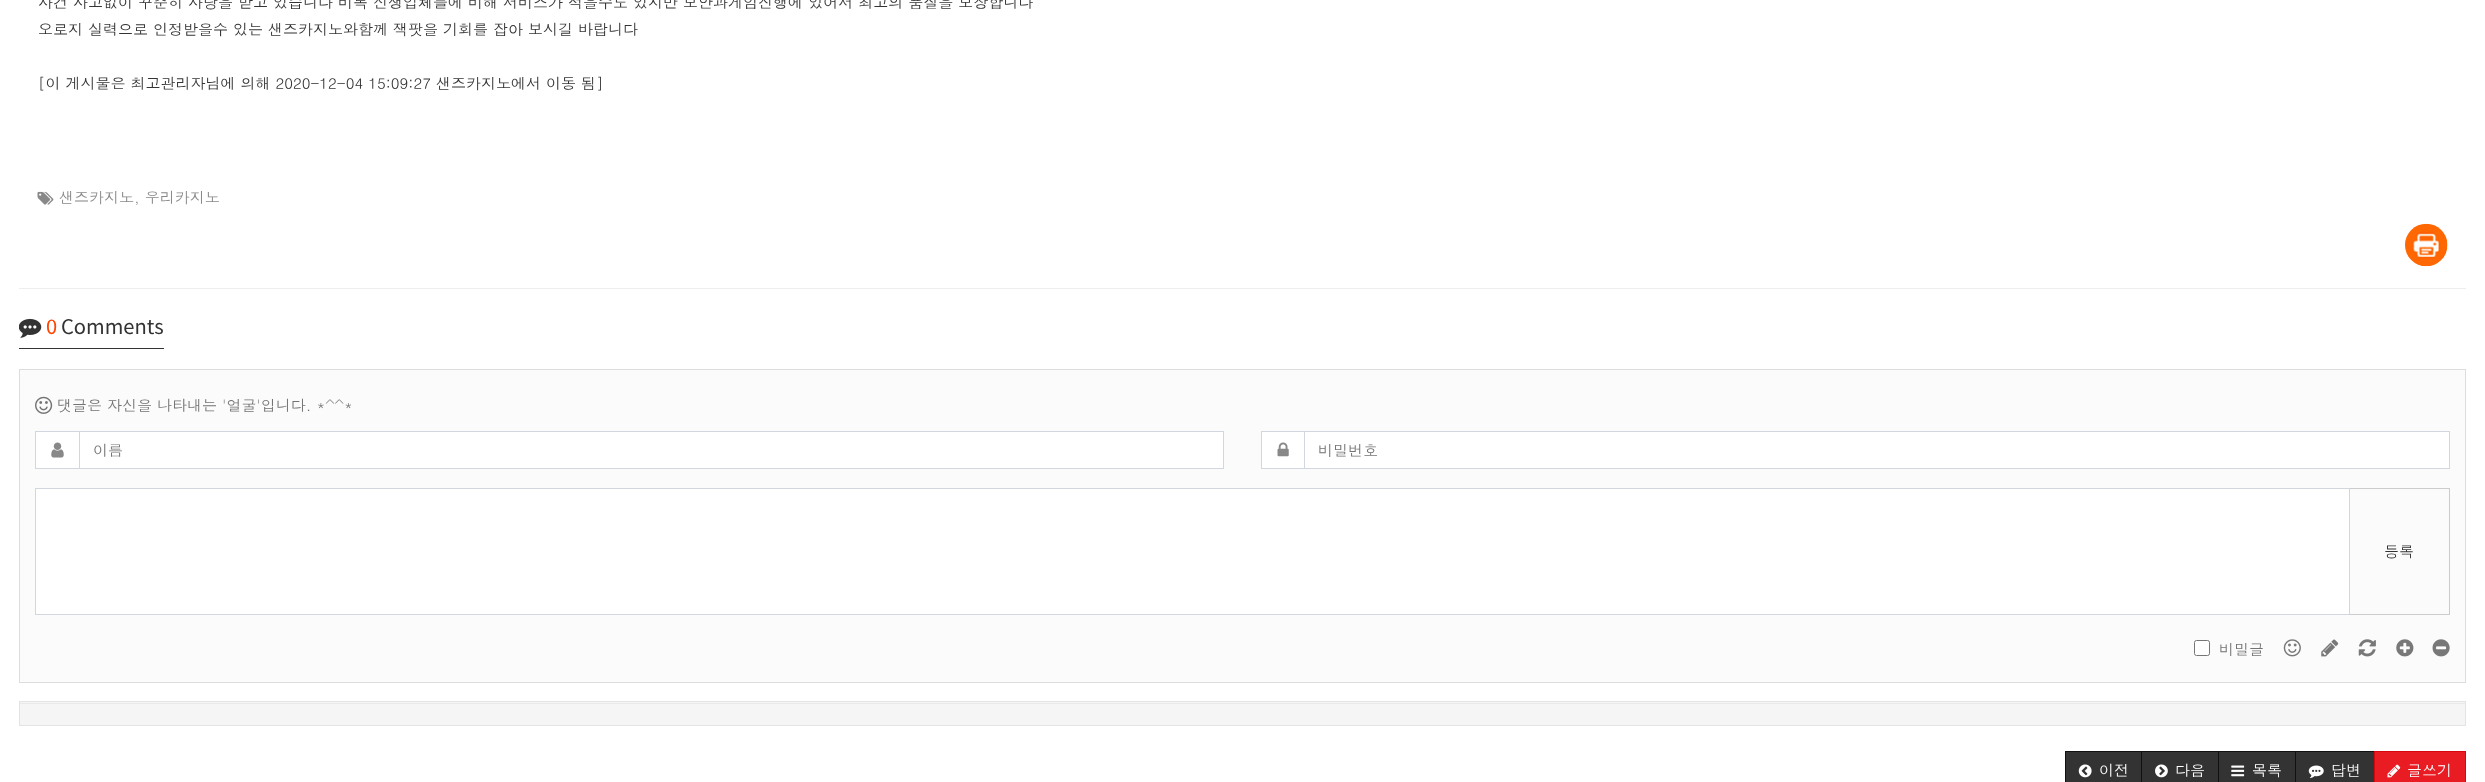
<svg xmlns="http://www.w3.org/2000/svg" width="2485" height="782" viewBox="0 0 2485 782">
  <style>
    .t1 { font: 15px Dotum; fill: #333; }
    .t2 { font: 15px Dotum; fill: #888; }
    .t3 { font: 22.5px Source Sans Pro; fill: #ff4500; }
    .t4 { font: 22.5px Source Sans Pro; fill: #333; }
    .t5 { font: 15px Dotum; fill: #737373; }
    .t6 { font: 15px Dotum; fill: #fff; }
  </style>
  <rect width="100%" height="100%" fill="#fff"/>
  <text x="38" y="8" class="t1">사건 사고없이 꾸준히 사랑을 받고 있습니다 비록 신생업체들에 비해 서비스가 적을수도 있지만 보안과게임진행에 있어서 최고의 품질을 보장합니다</text>
  <text x="38" y="35" class="t1">오로지 실력으로 인정받을수 있는 샌즈카지노와함께 잭팟을 기회를 잡아 보시길 바랍니다</text>
  <text x="38" y="89" class="t1">[이 게시물은 최고관리자님에 의해 2020-12-04 15:09:27 샌즈카지노에서 이동 됨]</text>
  <image x="37" y="191" width="17" height="14" href="images/1.png"/>
  <text x="59" y="203" class="t2">샌즈카지노, 우리카지노</text>
  <image x="2405" y="223" width="43" height="44" href="images/2.png"/>
  <rect x="19" y="288" width="2447" height="1" fill="#eee"/>
  <rect x="19" y="348" width="145" height="1" fill="#333"/>
  <image x="19" y="318" width="23" height="20" href="images/3.png"/>
  <text x="46" y="334" class="t3">0</text>
  <text x="61" y="334" class="t4">Comments</text>
  <rect x="19.5" y="369.5" width="2446" height="313" fill="#fbfbfb" stroke="#ddd"/>
  <image x="35" y="396" width="18" height="18" href="images/4.png"/>
  <text x="57" y="411" class="t5">댓글은 자신을 나타내는 '얼굴'입니다. *^^*</text>
  <rect x="36" y="432" width="43" height="36" fill="#fff"/>
  <rect x="35" y="431" width="44" height="1" fill="#d2d6de"/>
  <rect x="35" y="468" width="44" height="1" fill="#d2d6de"/>
  <rect x="35" y="431" width="1" height="38" fill="#d2d6de"/>
  <image x="51" y="442" width="13" height="16" href="images/5.png"/>
  <rect x="79.5" y="431.5" width="1144" height="37" fill="#fff" stroke="#d2d6de"/>
  <text x="93" y="456" class="t5">이름</text>
  <rect x="1262" y="432" width="42" height="36" fill="#fff"/>
  <rect x="1261" y="431" width="43" height="1" fill="#d2d6de"/>
  <rect x="1261" y="468" width="43" height="1" fill="#d2d6de"/>
  <rect x="1261" y="431" width="1" height="38" fill="#d2d6de"/>
  <image x="1277" y="442" width="12" height="15" href="images/6.png"/>
  <rect x="1304.5" y="431.5" width="1145" height="37" fill="#fff" stroke="#d2d6de"/>
  <text x="1318" y="456" class="t5">비밀번호</text>
  <rect x="35.5" y="488.5" width="2314" height="126" fill="#fff" stroke="#d2d6de"/>
  <rect x="2350" y="488" width="100" height="1" fill="#ccc"/>
  <rect x="2449" y="488" width="1" height="127" fill="#ccc"/>
  <rect x="2350" y="614" width="100" height="1" fill="#ccc"/>
  <text x="2384" y="557" class="t1">등록</text>
  <rect x="2194.5" y="640.5" width="15" height="15" rx="2" fill="#fff" stroke="#767676"/>
  <text x="2219" y="655" class="t5">비밀글</text>
  <image x="2283" y="639" width="18" height="18" href="images/7.png"/>
  <image x="2321" y="639" width="18" height="18" href="images/8.png"/>
  <image x="2358" y="639" width="18" height="18" href="images/9.png"/>
  <image x="2396" y="639" width="18" height="18" href="images/10.png"/>
  <image x="2432" y="639" width="18" height="18" href="images/11.png"/>
  <rect x="20" y="702" width="2445" height="23" fill="#f5f5f5"/>
  <rect x="20" y="703" width="2445" height="1" fill="#e9e9e9"/>
  <rect x="19.5" y="701.5" width="2446" height="24" fill="none" stroke="#e3e3e3"/>
  <rect x="2066" y="752" width="75" height="30" fill="#333"/>
  <rect x="2065.5" y="751.5" width="77" height="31" fill="none" stroke="#111"/>
  <image x="2078" y="764" width="14" height="14" href="images/12.png"/>
  <text x="2099" y="776" class="t6">이전</text>
  <rect x="2141.5" y="751.5" width="77" height="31" fill="#333" stroke="#111"/>
  <image x="2155" y="764" width="13" height="14" href="images/13.png"/>
  <text x="2175" y="776" class="t6">다음</text>
  <rect x="2218.5" y="751.5" width="77" height="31" fill="#333" stroke="#111"/>
  <image x="2231" y="765" width="14" height="12" href="images/14.png"/>
  <text x="2252" y="776" class="t6">목록</text>
  <rect x="2295.5" y="751.5" width="79" height="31" fill="#333" stroke="#111"/>
  <image x="2308" y="765" width="16" height="14" href="images/15.png"/>
  <text x="2331" y="776" class="t6">답변</text>
  <rect x="2374.5" y="751.5" width="91" height="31" fill="#e91b23" stroke="#d5070f"/>
  <image x="2387" y="764" width="14" height="14" href="images/16.png"/>
  <text x="2407" y="776" class="t6">글쓰기</text>
</svg>
